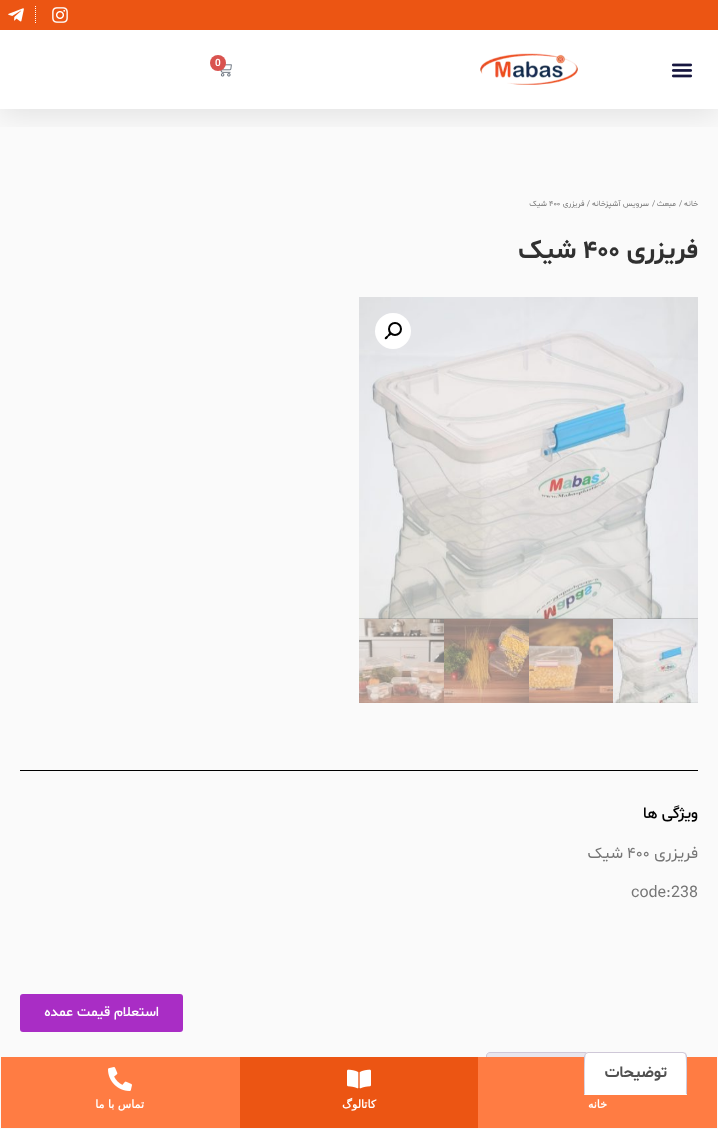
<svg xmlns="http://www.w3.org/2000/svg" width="718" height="1129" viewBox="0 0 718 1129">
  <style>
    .t1 { font: 600 10px Roboto; fill: #fff; }
    .t2 { font: 8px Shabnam; direction: rtl; fill: #767676; }
    .t3 { font: 8px Shabnam; fill: #767676; }
    .t4 { font: bold 26px Shabnam; direction: rtl; fill: #303030; }
    .t5 { font: bold 26px Shabnam; fill: #303030; }
    .t6 { font: 500 16px Shabnam; direction: rtl; fill: #000; }
    .t7 { font: 16px Shabnam; direction: rtl; fill: #767676; }
    .t8 { font: 16px Shabnam; fill: #767676; }
    .t9 { font: 500 14px Shabnam; direction: rtl; fill: #fff; }
    .t10 { font: bold 16px Shabnam; direction: rtl; fill: #515151; }
    .t11 { font: bold 11px DejaVu Sans; direction: rtl; fill: #fff; }
  </style>
  <defs>
    <clipPath id="clip1"><rect x="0" y="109" width="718" height="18"/></clipPath>
  </defs>
  <rect width="100%" height="100%" fill="#fff"/>
  <rect x="0" y="109" width="718" height="1020" fill="#fafafa"/>
  <g clip-path="url(#clip1)">
    <rect x="0" y="5" width="718" height="109" fill="#0000001a" filter="blur(15px)"/>
  </g>
  <rect x="0" y="0" width="718" height="30" fill="#ec5513"/>
  <image x="52" y="7" width="16" height="16" href="images/1.png"/>
  <path d="M35.5 6V24" fill="none" stroke="#fff" stroke-dasharray="1 1"/>
  <image x="8" y="8" width="16" height="14" href="images/2.png"/>
  <image x="671" y="63" width="22" height="15" href="images/3.png"/>
  <image x="480" y="53" width="98" height="32" href="images/4.png"/>
  <image x="220" y="64" width="12" height="13" href="images/5.png"/>
  <circle cx="218" cy="63" r="8" fill="#d9534f"/>
  <text x="215" y="66" class="t1">0</text>
  <text x="698" y="206" class="t2">خانه</text>
  <text x="679" y="206" class="t3">/</text>
  <text x="676" y="206" class="t2">مبعث</text>
  <text x="652" y="206" class="t3">/</text>
  <text x="649" y="206" class="t2">سرویس آشپزخانه</text>
  <text x="590" y="206" class="t2">/ فریزری</text>
  <text x="549" y="206" class="t3">۴۰۰</text>
  <text x="547" y="206" class="t2">شیک</text>
  <text x="698" y="258" class="t4">فریزری</text>
  <text x="583" y="258" class="t5">۴۰۰</text>
  <text x="576" y="258" class="t4">شیک</text>
  <image x="359" y="297" width="339" height="322" href="images/6.png"/>
  <circle cx="393" cy="331" r="18" fill="#fff"/>
  <circle cx="395" cy="329" r="6" fill="none" stroke="#000" stroke-width="2"/>
  <path d="M391 333C392 334.5 389.5 336 388.5 336.5C388 337.5 386.5 340 385 339C384 337.5 386.5 336 387.5 335.5C388 334.5 389.5 332 391 333Z" fill="#000"/>
  <image x="613" y="619" width="85" height="84" href="images/7.png"/>
  <image x="529" y="619" width="84" height="84" href="images/8.png"/>
  <image x="444" y="619" width="85" height="84" href="images/9.png"/>
  <image x="359" y="619" width="85" height="84" href="images/10.png"/>
  <rect x="20" y="770" width="678" height="1" fill="#000"/>
  <text x="698" y="818" class="t6">ویژگی ها</text>
  <text x="698" y="858" class="t7">فریزری</text>
  <text x="627" y="858" class="t8">۴۰۰</text>
  <text x="623" y="858" class="t7">شیک</text>
  <text x="631" y="897" class="t8">code:238</text>
  <rect x="20" y="994" width="163" height="38" rx="3" fill="#a92dc5"/>
  <text x="159" y="1016" class="t9">استعلام قیمت عمده</text>
  <path d="M490 1052.5H586C588 1052.5 589.5 1054 589.5 1056V1094.5H486.5V1056C486.5 1054 488 1052.5 490 1052.5Z" fill="#e9e6ed" stroke="#cfc8d8"/>
  <rect x="478" y="1057" width="239" height="71" fill="#ff7c43"/>
  <path d="M588 1052H683C685 1052 687 1054 687 1056V1095H584V1056C584 1054 586 1052 588 1052Z" fill="#fff"/>
  <path d="M588 1052L585 1053L586 1054L588 1053H683L685 1054L686 1053L683 1052Z" fill="#cfc8d8"/>
  <path d="M687 1095V1056C687 1055 686 1054 686 1053L685 1054C687 1056 686 1089 686 1094Z" fill="#cfc8d8"/>
  <path d="M687 1095L686 1094H585L584 1095Z" fill="#fff"/>
  <path d="M584 1095L585 1094C585 1089 584 1056 586 1054L585 1053L584 1056Z" fill="#cfc8d8"/>
  <text x="667" y="1077" class="t10">توضیحات</text>
  <text x="607" y="1108" class="t11">خانه</text>
  <rect x="240" y="1057" width="238" height="71" fill="#ec5513"/>
  <image x="347" y="1069" width="24" height="20" href="images/11.png"/>
  <text x="376" y="1108" class="t11">کاتالوگ</text>
  <rect x="1" y="1057" width="239" height="71" fill="#ff7c43"/>
  <image x="108" y="1067" width="24" height="24" href="images/12.png"/>
  <text x="144" y="1108" class="t11">تماس با ما</text>
</svg>
